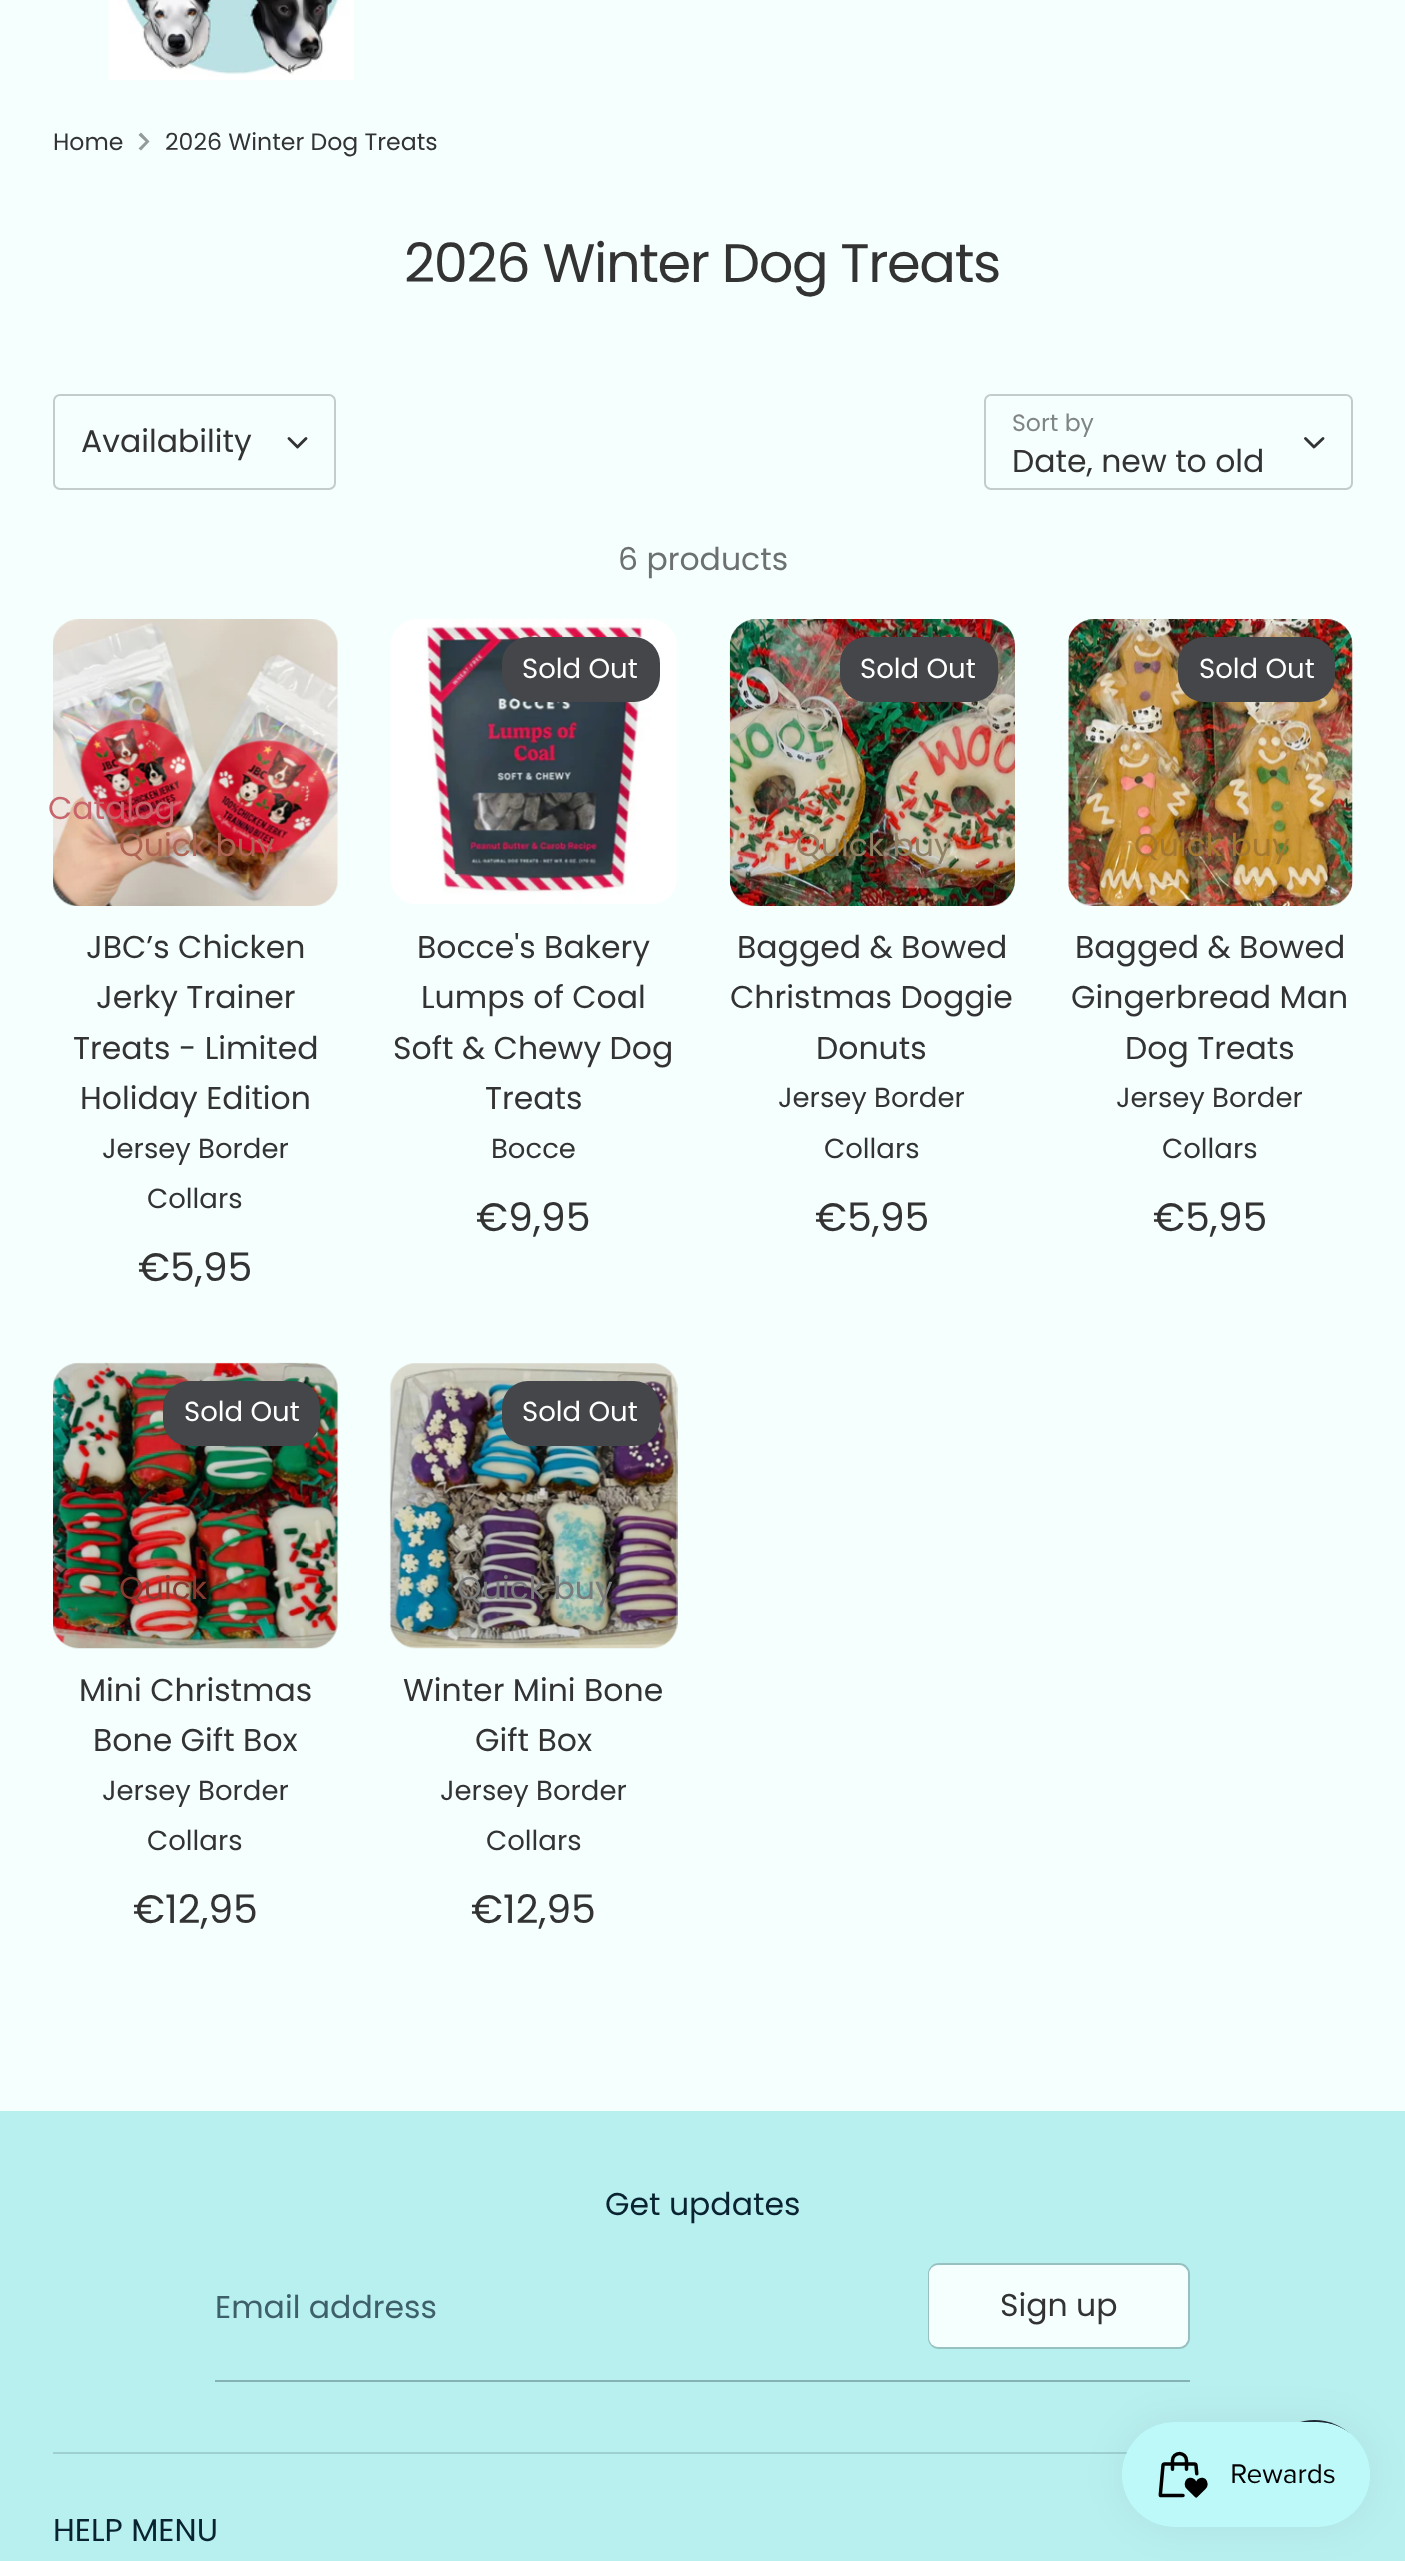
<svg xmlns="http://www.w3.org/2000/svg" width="1405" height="2561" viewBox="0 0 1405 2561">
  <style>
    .t1 { font: 23.6px Poppins; fill: #333; }
    .t2 { font: 54.25px Poppins; letter-spacing: -1.4px; fill: #333; }
    .t3 { font: 31.5px Poppins; fill: #333; }
    .t4 { font: 23.6px Poppins; fill: #808584; }
    .t5 { font: 31.5px Poppins; fill: #6d7070; }
    .t6 { font: 31.5px Poppins; fill: #ae6554; }
    .t7 { font: 27.5px Poppins; fill: #333; }
    .t8 { font: 39.5px Poppins; fill: #333; }
    .t9 { font: 27.5px Poppins; fill: #fff; }
    .t10 { font: 31.5px Poppins; fill: #918166; }
    .t11 { font: 31.5px Poppins; fill: #a57832; }
    .t12 { font: 31.5px Poppins; fill: #873b31; }
    .t13 { font: 31.5px Poppins; fill: #797b7c; }
    .t14 { font: 31.5px Poppins; fill: #cdcac5; }
    .t15 { font: 31.5px Poppins; fill: #c8646b; }
    .t16 { font: 31.5px Poppins; fill: #092331; }
    .t17 { font: 31.5px Poppins; fill: #3e606a; }
  </style>
  <rect width="100%" height="100%" fill="#f4fffe"/>
  <text x="53" y="150" class="t1">Home</text>
  <path d="M138.5 148.5L145.5 141.5L138.5 135L141 132.5L149.5 141.5L141 150.5Z" fill="#949999"/>
  <text x="165" y="150" class="t1">2026 Winter Dog Treats</text>
  <text x="404" y="282" class="t2">2026 Winter Dog Treats</text>
  <rect x="54" y="395" width="281" height="94" rx="6" fill="none" stroke="#c4cccb" stroke-width="2"/>
  <text x="81" y="452" class="t3">Availability</text>
  <path d="M289 438.5L297.5 447L306 438.5" fill="none" stroke="#333" stroke-width="2.9" stroke-linecap="round" stroke-linejoin="round"/>
  <rect x="985" y="395" width="367" height="94" rx="6" fill="none" stroke="#c4cccb" stroke-width="2"/>
  <text x="1012" y="431" class="t4">Sort by</text>
  <path d="M1305.5 438.5L1314 447L1323 438.5" fill="none" stroke="#333" stroke-width="2.9" stroke-linecap="round" stroke-linejoin="round"/>
  <text x="1012" y="472" class="t3">Date, new to old</text>
  <text x="618" y="570" class="t5">6 products</text>
  <image x="53" y="619" width="285" height="287" href="images/1.png"/>
  <text x="119" y="856" class="t6">Quick buy</text>
  <text x="86" y="958" class="t3">JBC’s Chicken</text>
  <text x="96" y="1008" class="t3">Jerky Trainer</text>
  <text x="73" y="1059" class="t3">Treats - Limited</text>
  <text x="80" y="1109" class="t3">Holiday Edition</text>
  <text x="102" y="1158" class="t7">Jersey Border</text>
  <text x="147" y="1208" class="t7">Collars</text>
  <text x="138" y="1281" class="t8">€5,95</text>
  <image x="390" y="619" width="288" height="285" href="images/2.png"/>
  <rect x="502" y="637" width="158" height="65" rx="26" fill="#444649"/>
  <text x="522" y="678" class="t9">Sold Out</text>
  <text x="476" y="1231" class="t8">€9,95</text>
  <text x="417" y="958" class="t3">Bocce's Bakery</text>
  <text x="421" y="1008" class="t3">Lumps of Coal</text>
  <text x="393" y="1059" class="t3">Soft &amp; Chewy Dog</text>
  <text x="485" y="1109" class="t3">Treats</text>
  <text x="491" y="1158" class="t7">Bocce</text>
  <image x="729" y="619" width="286" height="287" href="images/3.png"/>
  <rect x="840" y="637" width="158" height="65" rx="26" fill="#444649"/>
  <text x="860" y="678" class="t9">Sold Out</text>
  <text x="815" y="1231" class="t8">€5,95</text>
  <text x="796" y="856" class="t10">Quick buy</text>
  <text x="737" y="958" class="t3">Bagged &amp; Bowed</text>
  <text x="730" y="1008" class="t3">Christmas Doggie</text>
  <text x="816" y="1059" class="t3">Donuts</text>
  <text x="778" y="1107" class="t7">Jersey Border</text>
  <text x="824" y="1158" class="t7">Collars</text>
  <image x="1067" y="619" width="286" height="287" href="images/4.png"/>
  <rect x="1178" y="637" width="157" height="65" rx="26" fill="#444649"/>
  <text x="1199" y="678" class="t9">Sold Out</text>
  <text x="1153" y="1231" class="t8">€5,95</text>
  <text x="1134" y="856" class="t11">Quick buy</text>
  <text x="1075" y="958" class="t3">Bagged &amp; Bowed</text>
  <text x="1071" y="1008" class="t3">Gingerbread Man</text>
  <text x="1125" y="1059" class="t3">Dog Treats</text>
  <text x="1116" y="1107" class="t7">Jersey Border</text>
  <text x="1162" y="1158" class="t7">Collars</text>
  <image x="53" y="1362" width="286" height="287" href="images/5.png"/>
  <rect x="163" y="1381" width="157" height="65" rx="26" fill="#444649"/>
  <text x="184" y="1421" class="t9">Sold Out</text>
  <text x="133" y="1923" class="t8">€12,95</text>
  <text x="119" y="1599" class="t12">Quick</text>
  <text x="79" y="1701" class="t3">Mini Christmas</text>
  <text x="93" y="1751" class="t3">Bone Gift Box</text>
  <text x="102" y="1800" class="t7">Jersey Border</text>
  <text x="147" y="1850" class="t7">Collars</text>
  <image x="389" y="1363" width="289" height="286" href="images/6.png"/>
  <rect x="502" y="1381" width="158" height="65" rx="26" fill="#444649"/>
  <text x="522" y="1421" class="t9">Sold Out</text>
  <text x="471" y="1923" class="t8">€12,95</text>
  <text x="457" y="1599" class="t13">Quick buy</text>
  <text x="403" y="1701" class="t3">Winter Mini Bone</text>
  <text x="475" y="1751" class="t3">Gift Box</text>
  <text x="440" y="1800" class="t7">Jersey Border</text>
  <text x="486" y="1850" class="t7">Collars</text>
  <image x="108" y="0" width="246" height="80" href="images/7.png"/>
  <text x="128" y="714" class="t14">c</text>
  <text x="48" y="819" class="t15">Catalog</text>
  <rect x="0" y="2111" width="1405" height="450" fill="#b8efef"/>
  <text x="605" y="2215" class="t16">Get updates</text>
  <rect x="215" y="2380" width="975" height="2" fill="#84b2b6"/>
  <text x="215" y="2318" class="t17">Email address</text>
  <rect x="929" y="2264" width="260" height="84" rx="10" fill="none" stroke="#97c0c0" stroke-width="2"/>
  <rect x="929" y="2265" width="259" height="82" rx="9" fill="#f4fffe"/>
  <text x="1000" y="2316" class="t3">Sign up</text>
  <rect x="53" y="2452" width="1074" height="2" fill="#9ed0d3"/>
  <text x="53" y="2541" class="t16">HELP MENU</text>
  <circle cx="1314.5" cy="2472.5" r="52.5" fill="#202a36"/>
  <rect x="1122" y="2422" width="248" height="105" rx="52.5" fill="#0000000d" filter="blur(22px)"/>
  <image x="1122" y="2422" width="248" height="105" href="images/8.png"/>
</svg>
